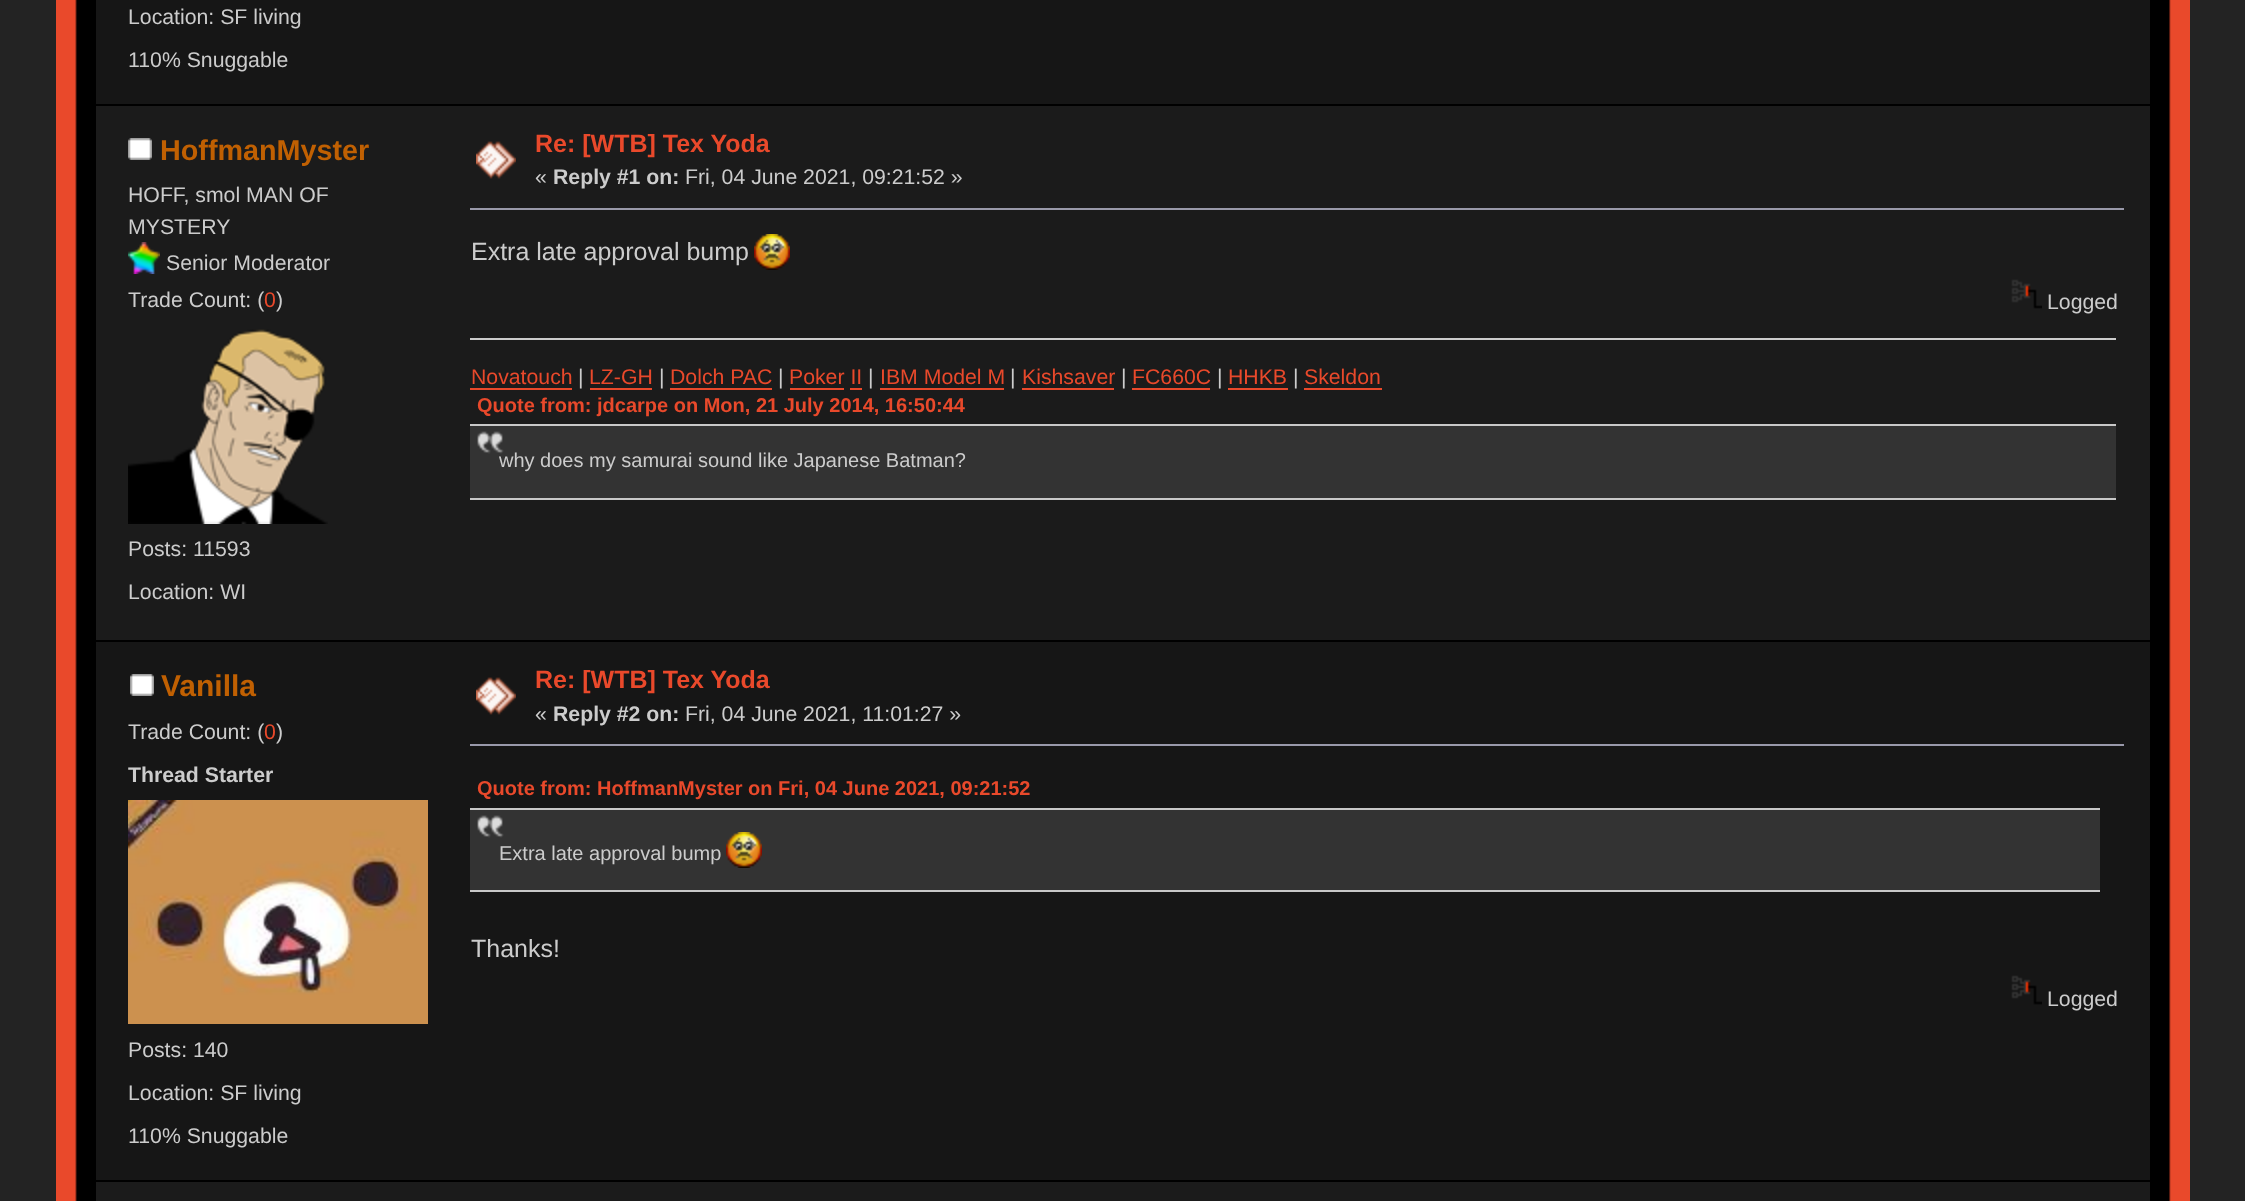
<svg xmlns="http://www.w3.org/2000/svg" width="2245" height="1201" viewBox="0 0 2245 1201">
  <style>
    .t1 { font: 21.25px Liberation Sans; fill: #ccc; }
    .t2 { font: bold 28.75px Liberation Sans; fill: #c06002; }
    .t3 { font: 21.25px Liberation Sans; fill: #e9492b; }
    .t4 { font: bold 25px Liberation Sans; fill: #e9492b; }
    .t5 { font: bold 21.25px Liberation Sans; fill: #ccc; }
    .t6 { font: 25px Liberation Sans; fill: #ccc; }
    .t7 { font: bold 20px Liberation Sans; fill: #e9492b; }
    .t8 { font: 20px Liberation Sans; fill: #ccc; }
    .t9 { font: bold 30px Liberation Sans; fill: #c06002; }
  </style>
  <rect width="100%" height="100%" fill="#232323"/>
  <rect x="77" y="0" width="2092" height="1201" fill="#000"/>
  <image x="56" y="0" width="21" height="1201" href="images/1.png"/>
  <image x="2169" y="0" width="21" height="1201" href="images/2.png"/>
  <rect x="96" y="0" width="2054" height="104" fill="#161616"/>
  <text x="128" y="24" class="t1">Location: SF living</text>
  <text x="128" y="67" class="t1">110% Snuggable</text>
  <rect x="96" y="106" width="2054" height="534" fill="#1b1b1b"/>
  <image x="128" y="138" width="24" height="22" href="images/3.png"/>
  <text x="160" y="160" class="t2">HoffmanMyster</text>
  <text x="128" y="202" class="t1">HOFF, smol MAN OF</text>
  <text x="128" y="234" class="t1">MYSTERY</text>
  <image x="128" y="242" width="32" height="32" href="images/4.png"/>
  <text x="166" y="270" class="t1">Senior Moderator</text>
  <text x="128" y="307" class="t1">Trade Count: (</text>
  <text x="264" y="307" class="t3">0</text>
  <text x="276" y="307" class="t1">)</text>
  <image x="128" y="329" width="200" height="195" href="images/5.png"/>
  <text x="128" y="556" class="t1">Posts: 11593</text>
  <text x="128" y="599" class="t1">Location: WI</text>
  <image x="476" y="141" width="40" height="38" href="images/6.png"/>
  <text x="535" y="152" class="t4">Re: [WTB] Tex Yoda</text>
  <text x="535" y="184" class="t1">«</text>
  <text x="553" y="184" class="t5">Reply #1 on:</text>
  <text x="685" y="184" class="t1">Fri, 04 June 2021, 09:21:52 »</text>
  <rect x="470" y="208" width="1654" height="2" fill="#99a"/>
  <text x="471" y="260" class="t6">Extra late approval bump</text>
  <image x="754" y="234" width="36" height="36" href="images/7.png"/>
  <image x="2011" y="279" width="31" height="30" href="images/8.png"/>
  <text x="2047" y="309" class="t1">Logged</text>
  <rect x="470" y="338" width="1646" height="2" fill="#ccc"/>
  <text x="471" y="384" class="t3">Novatouch</text>
  <rect x="470" y="388" width="102" height="2" fill="#e9492b"/>
  <text x="578" y="384" class="t1">|</text>
  <text x="589" y="384" class="t3">LZ-GH</text>
  <rect x="590" y="388" width="62" height="2" fill="#e9492b"/>
  <text x="659" y="384" class="t1">|</text>
  <text x="670" y="384" class="t3">Dolch PAC</text>
  <rect x="670" y="388" width="102" height="2" fill="#e9492b"/>
  <text x="778" y="384" class="t1">|</text>
  <text x="789" y="384" class="t3">Poker II</text>
  <rect x="790" y="388" width="54" height="2" fill="#e9492b"/>
  <text x="868" y="384" class="t1">|</text>
  <text x="880" y="384" class="t3">IBM Model M</text>
  <rect x="880" y="388" width="124" height="2" fill="#e9492b"/>
  <text x="1010" y="384" class="t1">|</text>
  <text x="1022" y="384" class="t3">Kishsaver</text>
  <rect x="1022" y="388" width="92" height="2" fill="#e9492b"/>
  <text x="1121" y="384" class="t1">|</text>
  <text x="1132" y="384" class="t3">FC660C</text>
  <rect x="1132" y="388" width="78" height="2" fill="#e9492b"/>
  <text x="1217" y="384" class="t1">|</text>
  <text x="1228" y="384" class="t3">HHKB</text>
  <rect x="1228" y="388" width="60" height="2" fill="#e9492b"/>
  <text x="1293" y="384" class="t1">|</text>
  <text x="1304" y="384" class="t3">Skeldon</text>
  <rect x="1304" y="388" width="78" height="2" fill="#e9492b"/>
  <rect x="850" y="388" width="12" height="2" fill="#e9492b"/>
  <text x="477" y="412" class="t7">Quote from: jdcarpe on Mon, 21 July 2014, 16:50:44</text>
  <rect x="470" y="426" width="1646" height="72" fill="#333"/>
  <image x="477" y="431" width="27" height="23" href="images/9.png"/>
  <rect x="470" y="424" width="1646" height="2" fill="#c8c8c8"/>
  <rect x="470" y="498" width="1646" height="2" fill="#c8c8c8"/>
  <text x="499" y="467" class="t8">why does my samurai sound like Japanese Batman?</text>
  <rect x="96" y="642" width="2054" height="538" fill="#161616"/>
  <image x="130" y="674" width="24" height="22" href="images/10.png"/>
  <text x="161" y="696" class="t9">Vanilla</text>
  <text x="128" y="739" class="t1">Trade Count: (</text>
  <text x="264" y="739" class="t3">0</text>
  <text x="276" y="739" class="t1">)</text>
  <text x="128" y="782" class="t5">Thread Starter</text>
  <image x="128" y="800" width="300" height="224" href="images/11.png"/>
  <text x="128" y="1057" class="t1">Posts: 140</text>
  <text x="128" y="1100" class="t1">Location: SF living</text>
  <text x="128" y="1143" class="t1">110% Snuggable</text>
  <image x="476" y="677" width="40" height="38" href="images/12.png"/>
  <text x="535" y="688" class="t4">Re: [WTB] Tex Yoda</text>
  <text x="535" y="721" class="t1">«</text>
  <text x="553" y="721" class="t5">Reply #2 on:</text>
  <text x="685" y="721" class="t1">Fri, 04 June 2021, 11:01:27 »</text>
  <rect x="470" y="744" width="1654" height="2" fill="#99a"/>
  <text x="477" y="795" class="t7">Quote from: HoffmanMyster on Fri, 04 June 2021, 09:21:52</text>
  <rect x="470" y="810" width="1630" height="80" fill="#333"/>
  <image x="477" y="815" width="27" height="23" href="images/9.png"/>
  <rect x="470" y="808" width="1630" height="2" fill="#c8c8c8"/>
  <rect x="470" y="890" width="1630" height="2" fill="#c8c8c8"/>
  <text x="499" y="860" class="t8">Extra late approval bump</text>
  <image x="726" y="832" width="36" height="36" href="images/13.png"/>
  <text x="471" y="957" class="t6">Thanks!</text>
  <image x="2011" y="975" width="31" height="30" href="images/14.png"/>
  <text x="2047" y="1006" class="t1">Logged</text>
  <rect x="96" y="1182" width="2054" height="19" fill="#1b1b1b"/>
</svg>
